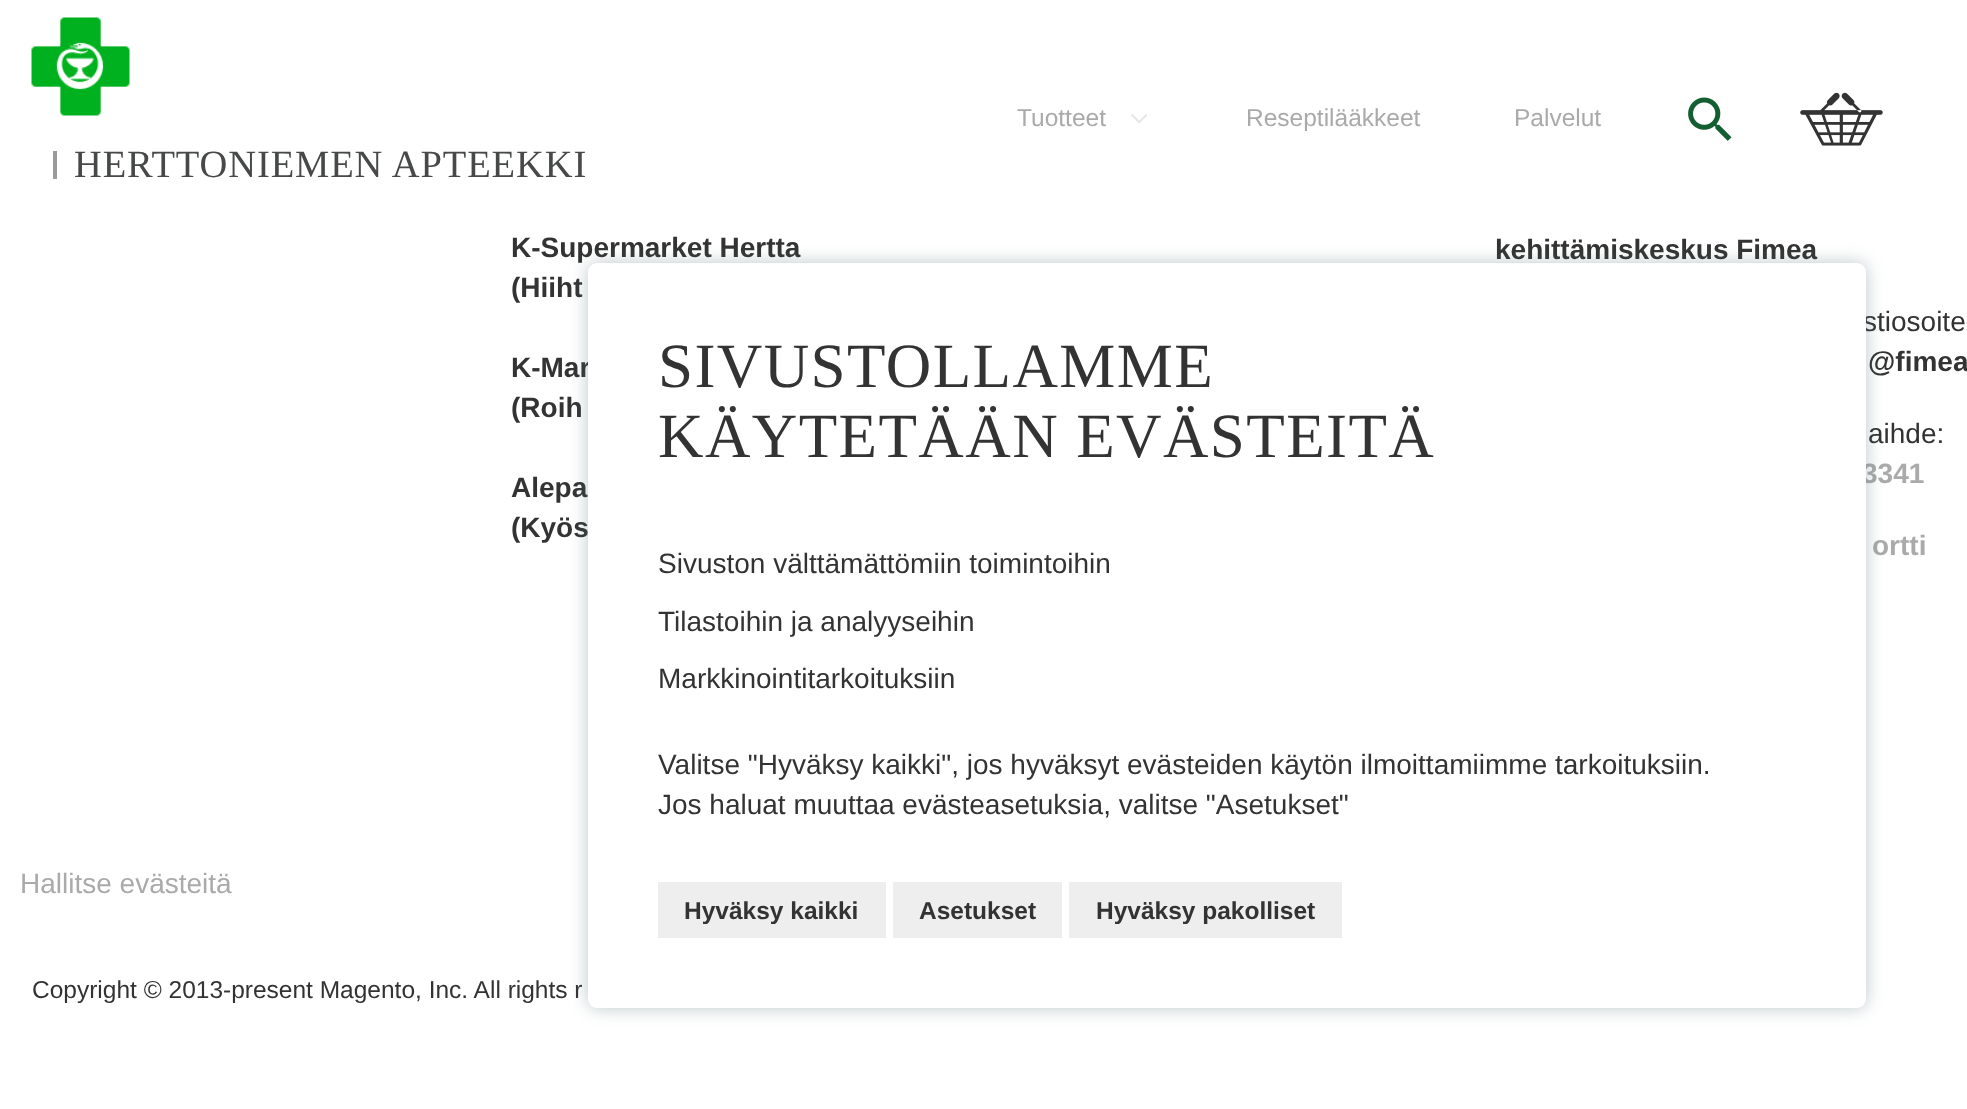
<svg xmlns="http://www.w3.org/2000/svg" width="1967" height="1109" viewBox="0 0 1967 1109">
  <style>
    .t1 { font: 24.5px Liberation Sans; fill: #aaa; }
    .t2 { font: 38.5px Liberation Serif; letter-spacing: 0.9px; fill: #474948; }
    .t3 { font: bold 28px Liberation Sans; fill: #333; }
    .t4 { font: 28px Liberation Sans; fill: #333; }
    .t5 { font: bold 28px Liberation Sans; fill: #aaa; }
    .t6 { font: 28px Liberation Sans; fill: #aaa; }
    .t7 { font: 24.5px Liberation Sans; fill: #333; }
    .t8 { font: 63px Liberation Serif; letter-spacing: 1.4px; fill: #333; }
    .t9 { font: bold 24.5px Liberation Sans; fill: #333; }
  </style>
  <rect width="100%" height="100%" fill="#fff"/>
  <text x="1017" y="126" class="t1">Tuotteet</text>
  <image x="1131" y="114" width="17" height="10" href="images/1.png"/>
  <text x="1246" y="126" class="t1">Reseptilääkkeet</text>
  <text x="1514" y="126" class="t1">Palvelut</text>
  <image x="1688" y="97" width="44" height="44" href="images/2.png"/>
  <image x="1800" y="92" width="83" height="54" href="images/3.png"/>
  <image x="31" y="17" width="99" height="99" href="images/4.png"/>
  <rect x="53" y="151" width="4" height="28" fill="#9b9b9b"/>
  <text x="74" y="177" class="t2">HERTTONIEMEN APTEEKKI</text>
  <text x="511" y="257" class="t3">K-Supermarket Hertta</text>
  <text x="511" y="297" class="t3">(Hiiht</text>
  <text x="511" y="377" class="t3">K-Mar</text>
  <text x="511" y="417" class="t3">(Roih</text>
  <text x="511" y="497" class="t3">Alepa</text>
  <text x="511" y="537" class="t3">(Kyös</text>
  <text x="1495" y="259" class="t3">kehittämiskeskus Fimea</text>
  <text x="1863" y="331" class="t4">stiosoite</text>
  <text x="1868" y="371" class="t3">@fimea</text>
  <text x="1868" y="443" class="t4">aihde:</text>
  <text x="1862" y="483" class="t5">3341</text>
  <text x="1872" y="555" class="t5">ortti</text>
  <text x="20" y="893" class="t6">Hallitse evästeitä</text>
  <text x="32" y="998" class="t7">Copyright © 2013-present Magento, Inc. All rights r</text>
  <rect x="588" y="263" width="1278" height="745" rx="9" fill="#54747866" filter="blur(9px)"/>
  <rect x="588" y="263" width="1278" height="745" rx="9" fill="#fff"/>
  <text x="658" y="387" class="t8">SIVUSTOLLAMME</text>
  <text x="658" y="457" class="t8">KÄYTETÄÄN EVÄSTEITÄ</text>
  <text x="658" y="573" class="t4">Sivuston välttämättömiin toimintoihin</text>
  <text x="658" y="631" class="t4">Tilastoihin ja analyyseihin</text>
  <text x="658" y="688" class="t4">Markkinointitarkoituksiin</text>
  <text x="658" y="774" class="t4">Valitse "Hyväksy kaikki", jos hyväksyt evästeiden käytön ilmoittamiimme tarkoituksiin.</text>
  <text x="658" y="814" class="t4">Jos haluat muuttaa evästeasetuksia, valitse "Asetukset"</text>
  <rect x="658" y="882" width="228" height="56" fill="#eee"/>
  <text x="684" y="919" class="t9">Hyväksy kaikki</text>
  <rect x="893" y="882" width="169" height="56" fill="#eee"/>
  <text x="919" y="919" class="t9">Asetukset</text>
  <rect x="1069" y="882" width="273" height="56" fill="#eee"/>
  <text x="1096" y="919" class="t9">Hyväksy pakolliset</text>
</svg>
